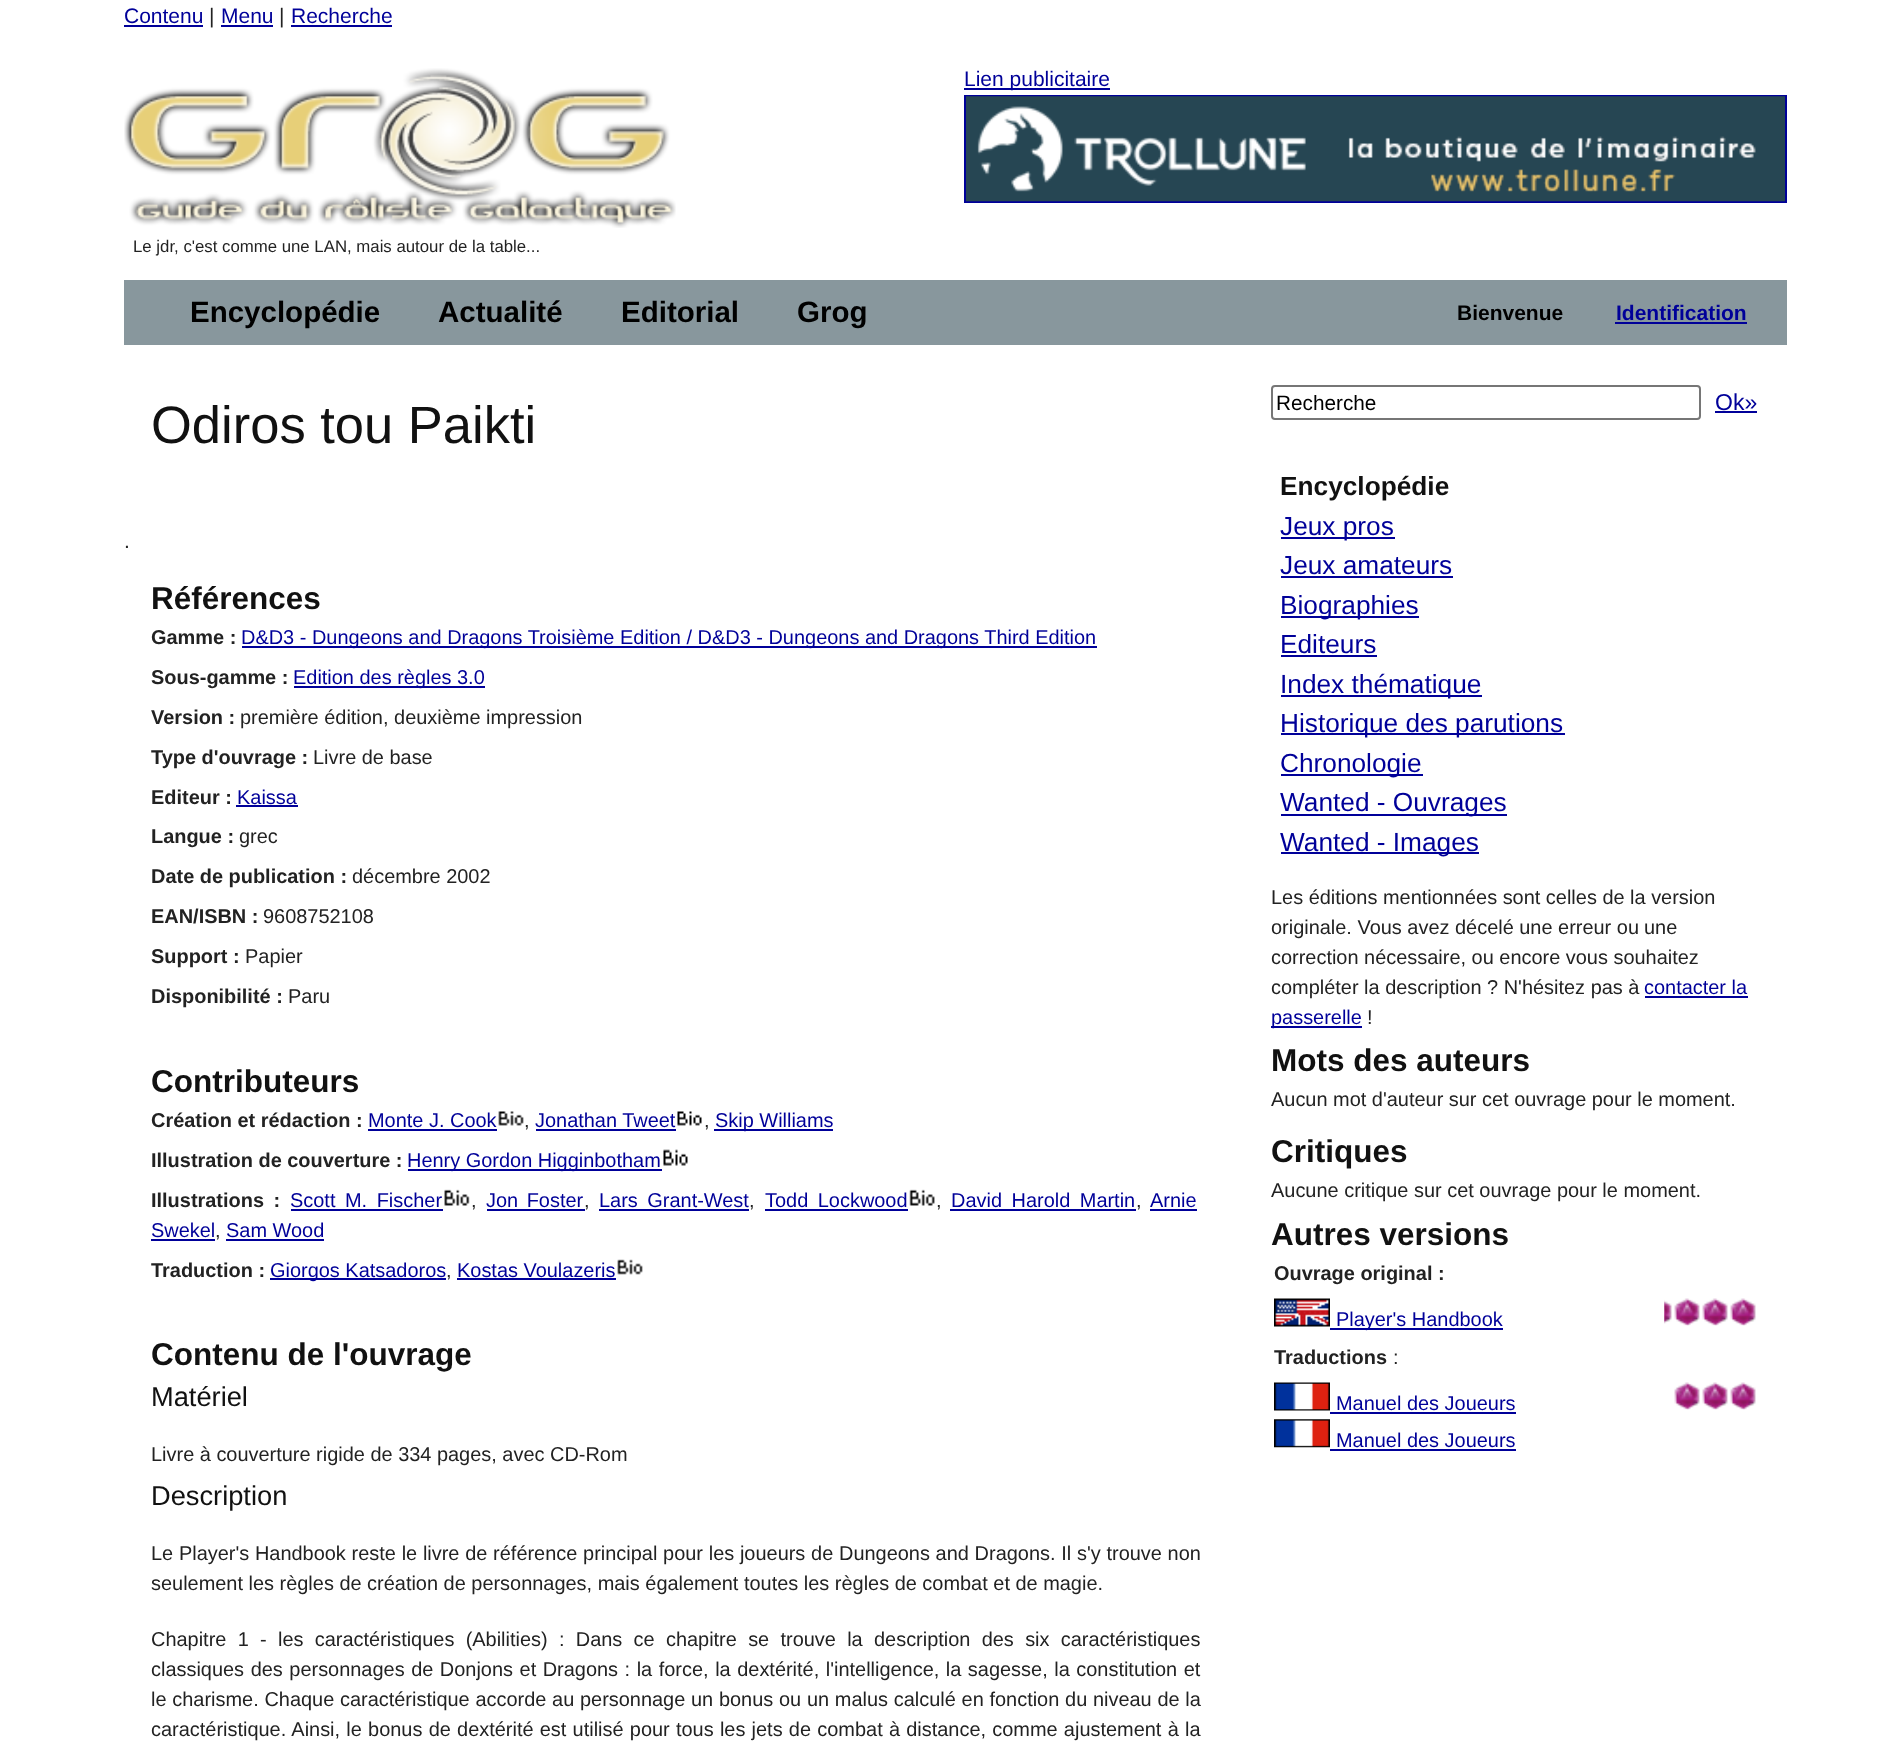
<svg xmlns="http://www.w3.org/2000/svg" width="1878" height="1744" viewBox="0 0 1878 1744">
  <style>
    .t1 { font: 21px Liberation Sans; fill: #009; }
    .t2 { font: 21px Liberation Sans; fill: #222; }
    .t3 { font: 16.8px Liberation Sans; fill: #222; }
    .t4 { font: bold 29.5px Liberation Sans; fill: #000; }
    .t5 { font: bold 21px Liberation Sans; fill: #000; }
    .t6 { font: bold 21px Liberation Sans; fill: #009; }
    .t7 { font: 52.5px Liberation Sans; fill: #111; }
    .t8 { font: bold 31.5px Liberation Sans; fill: #111; }
    .t9 { font: bold 19.95px Liberation Sans; fill: #222; }
    .t10 { font: 19.95px Liberation Sans; fill: #009; }
    .t11 { font: 19.95px Liberation Sans; fill: #222; }
    .t12 { font: 27.25px Liberation Sans; fill: #111; }
    .t13 { font: 20.75px Liberation Sans; fill: #000; }
    .t14 { font: 23px Liberation Sans; fill: #009; }
    .t15 { font: bold 26.25px Liberation Sans; fill: #111; }
    .t16 { font: 26.25px Liberation Sans; fill: #009; }
  </style>
  <rect width="100%" height="100%" fill="#fff"/>
  <text x="124" y="23" class="t1">Contenu</text>
  <rect x="124" y="25" width="79" height="2" fill="#009"/>
  <text x="209" y="23" class="t2">|</text>
  <text x="221" y="23" class="t1">Menu</text>
  <rect x="221" y="25" width="52" height="2" fill="#009"/>
  <text x="279" y="23" class="t2">|</text>
  <text x="291" y="23" class="t1">Recherche</text>
  <rect x="291" y="25" width="101" height="2" fill="#009"/>
  <rect x="964" y="88" width="146" height="2" fill="#009"/>
  <text x="964" y="86" class="t1">Lien publicitaire</text>
  <rect x="965" y="96" width="821" height="106" fill="none" stroke="#009" stroke-width="2"/>
  <image x="966" y="96" width="819" height="106" href="images/1.png"/>
  <image x="124" y="68" width="552" height="160" href="images/2.png"/>
  <text x="133" y="252" class="t3">Le jdr, c'est comme une LAN, mais autour de la table...</text>
  <rect x="124" y="280" width="1663" height="65" fill="#88979d"/>
  <text x="190" y="322" class="t4">Encyclopédie</text>
  <text x="438" y="322" class="t4">Actualité</text>
  <text x="621" y="322" class="t4">Editorial</text>
  <text x="797" y="322" class="t4">Grog</text>
  <text x="1457" y="320" class="t5">Bienvenue</text>
  <text x="1616" y="320" class="t6">Identification</text>
  <rect x="1615" y="322" width="132" height="2" fill="#009"/>
  <text x="151" y="443" class="t7">Odiros tou Paikti</text>
  <text x="124" y="548" class="t2">.</text>
  <text x="151" y="609" class="t8">Références</text>
  <text x="151" y="644" class="t9">Gamme :</text>
  <rect x="242" y="646" width="855" height="2" fill="#009"/>
  <text x="241" y="644" class="t10">D&amp;D3 - Dungeons and Dragons Troisième Edition / D&amp;D3 - Dungeons and Dragons Third Edition</text>
  <text x="151" y="684" class="t9">Sous-gamme :</text>
  <rect x="294" y="686" width="191" height="2" fill="#009"/>
  <text x="293" y="684" class="t10">Edition des règles 3.0</text>
  <text x="151" y="724" class="t9">Version :</text>
  <text x="240" y="724" class="t11">première édition, deuxième impression</text>
  <text x="151" y="764" class="t9">Type d'ouvrage :</text>
  <text x="313" y="764" class="t11">Livre de base</text>
  <text x="151" y="804" class="t9">Editeur :</text>
  <text x="237" y="804" class="t10">Kaissa</text>
  <rect x="236" y="805" width="62" height="2" fill="#009"/>
  <text x="151" y="843" class="t9">Langue :</text>
  <text x="239" y="843" class="t11">grec</text>
  <text x="151" y="883" class="t9">Date de publication :</text>
  <text x="352" y="883" class="t11">décembre 2002</text>
  <text x="151" y="923" class="t9">EAN/ISBN :</text>
  <text x="263" y="923" class="t11">9608752108</text>
  <text x="151" y="963" class="t9">Support :</text>
  <text x="245" y="963" class="t11">Papier</text>
  <text x="151" y="1003" class="t9">Disponibilité :</text>
  <text x="288" y="1003" class="t11">Paru</text>
  <text x="151" y="1092" class="t8">Contributeurs</text>
  <text x="151" y="1127" class="t9">Création et rédaction :</text>
  <text x="368" y="1127" class="t10">Monte J. Cook</text>
  <rect x="368" y="1129" width="129" height="2" fill="#009"/>
  <image x="498" y="1111" width="26" height="15" href="images/3.png"/>
  <text x="524" y="1127" class="t11">,</text>
  <text x="535" y="1127" class="t10">Jonathan Tweet</text>
  <rect x="536" y="1129" width="140" height="2" fill="#009"/>
  <image x="677" y="1111" width="25" height="15" href="images/4.png"/>
  <text x="704" y="1127" class="t11">,</text>
  <rect x="714" y="1129" width="119" height="2" fill="#009"/>
  <text x="715" y="1127" class="t10">Skip Williams</text>
  <text x="151" y="1167" class="t9">Illustration de couverture :</text>
  <rect x="408" y="1169" width="254" height="2" fill="#009"/>
  <text x="407" y="1167" class="t10">Henry Gordon Higginbotham</text>
  <image x="663" y="1149" width="25" height="17" href="images/5.png"/>
  <text x="151" y="1207" word-spacing="4" class="t9">Illustrations :</text>
  <text x="290" y="1207" word-spacing="4" class="t10">Scott M. Fischer</text>
  <rect x="291" y="1209" width="152" height="2" fill="#009"/>
  <image x="444" y="1189" width="26" height="17" href="images/6.png"/>
  <text x="471" y="1207" class="t11">,</text>
  <text x="486" y="1207" word-spacing="3" class="t10">Jon Foster</text>
  <rect x="487" y="1209" width="98" height="2" fill="#009"/>
  <text x="584" y="1207" class="t11">,</text>
  <text x="599" y="1207" word-spacing="4" class="t10">Lars Grant-West</text>
  <rect x="599" y="1209" width="150" height="2" fill="#009"/>
  <text x="749" y="1207" class="t11">,</text>
  <text x="765" y="1207" word-spacing="4" class="t10">Todd Lockwood</text>
  <rect x="765" y="1209" width="143" height="2" fill="#009"/>
  <image x="909" y="1189" width="26" height="17" href="images/7.png"/>
  <text x="936" y="1207" class="t11">,</text>
  <text x="951" y="1207" word-spacing="4" class="t10">David Harold Martin</text>
  <rect x="950" y="1209" width="186" height="2" fill="#009"/>
  <text x="1136" y="1207" class="t11">,</text>
  <text x="1150" y="1207" class="t10">Arnie</text>
  <rect x="1150" y="1209" width="47" height="2" fill="#009"/>
  <text x="151" y="1237" class="t10">Swekel</text>
  <rect x="151" y="1239" width="64" height="2" fill="#009"/>
  <text x="215" y="1237" class="t11">,</text>
  <text x="226" y="1237" class="t10">Sam Wood</text>
  <rect x="226" y="1239" width="98" height="2" fill="#009"/>
  <text x="151" y="1277" class="t9">Traduction :</text>
  <rect x="270" y="1278" width="176" height="2" fill="#009"/>
  <text x="270" y="1277" class="t10">Giorgos Katsadoros</text>
  <text x="446" y="1277" class="t11">,</text>
  <text x="457" y="1277" class="t10">Kostas Voulazeris</text>
  <rect x="457" y="1278" width="159" height="2" fill="#009"/>
  <image x="617" y="1259" width="26" height="16" href="images/8.png"/>
  <text x="151" y="1365" class="t8">Contenu de l'ouvrage</text>
  <text x="151" y="1406" class="t12">Matériel</text>
  <text x="151" y="1461" class="t11">Livre à couverture rigide de 334 pages, avec CD-Rom</text>
  <text x="151" y="1505" class="t12">Description</text>
  <text x="151" y="1560" word-spacing="0.2" class="t11">Le Player's Handbook reste le livre de référence principal pour les joueurs de Dungeons and Dragons. Il s'y trouve non</text>
  <text x="151" y="1590" class="t11">seulement les règles de création de personnages, mais également toutes les règles de combat et de magie.</text>
  <text x="151" y="1646" word-spacing="5.75" class="t11">Chapitre 1 - les caractéristiques (Abilities) : Dans ce chapitre se trouve la description des six caractéristiques</text>
  <text x="151" y="1676" word-spacing="1" class="t11">classiques des personnages de Donjons et Dragons : la force, la dextérité, l'intelligence, la sagesse, la constitution et</text>
  <text x="151" y="1706" word-spacing="0.2" class="t11">le charisme. Chaque caractéristique accorde au personnage un bonus ou un malus calculé en fonction du niveau de la</text>
  <text x="151" y="1736" word-spacing="0.7" class="t11">caractéristique. Ainsi, le bonus de dextérité est utilisé pour tous les jets de combat à distance, comme ajustement à la</text>
  <rect x="1272" y="386" width="428" height="33" rx="3" fill="none" stroke="#767676" stroke-width="2"/>
  <text x="1276" y="410" class="t13">Recherche</text>
  <text x="1715" y="410" class="t14">Ok»</text>
  <rect x="1715" y="411" width="42" height="2" fill="#009"/>
  <text x="1280" y="495" class="t15">Encyclopédie</text>
  <rect x="1281" y="537" width="114" height="2" fill="#009"/>
  <text x="1280" y="535" class="t16">Jeux pros</text>
  <text x="1280" y="574" class="t16">Jeux amateurs</text>
  <rect x="1281" y="576" width="172" height="2" fill="#009"/>
  <rect x="1281" y="616" width="138" height="2" fill="#009"/>
  <text x="1280" y="614" class="t16">Biographies</text>
  <text x="1280" y="653" class="t16">Editeurs</text>
  <rect x="1281" y="655" width="96" height="2" fill="#009"/>
  <rect x="1281" y="695" width="201" height="2" fill="#009"/>
  <text x="1280" y="693" class="t16">Index thématique</text>
  <rect x="1281" y="733" width="284" height="2" fill="#009"/>
  <text x="1280" y="732" class="t16">Historique des parutions</text>
  <rect x="1281" y="774" width="142" height="2" fill="#009"/>
  <text x="1280" y="772" class="t16">Chronologie</text>
  <rect x="1281" y="814" width="226" height="2" fill="#009"/>
  <text x="1280" y="811" class="t16">Wanted - Ouvrages</text>
  <rect x="1281" y="852" width="198" height="2" fill="#009"/>
  <text x="1280" y="851" class="t16">Wanted - Images</text>
  <text x="1271" y="904" class="t11">Les éditions mentionnées sont celles de la version</text>
  <text x="1271" y="934" class="t11">originale. Vous avez décelé une erreur ou</text>
  <text x="1644" y="934" class="t11">une</text>
  <text x="1271" y="964" class="t11">correction nécessaire, ou encore vous souhaitez</text>
  <text x="1271" y="994" class="t11">compléter la description ? N'hésitez pas à</text>
  <text x="1644" y="994" class="t10">contacter la</text>
  <rect x="1645" y="996" width="103" height="2" fill="#009"/>
  <rect x="1271" y="1026" width="91" height="2" fill="#009"/>
  <text x="1271" y="1024" class="t10">passerelle</text>
  <text x="1367" y="1024" class="t11">!</text>
  <text x="1271" y="1071" class="t8">Mots des auteurs</text>
  <text x="1271" y="1106" class="t11">Aucun mot d'auteur sur cet ouvrage pour le moment.</text>
  <text x="1271" y="1162" class="t8">Critiques</text>
  <text x="1271" y="1197" class="t11">Aucune critique sur cet ouvrage pour le moment.</text>
  <text x="1271" y="1245" class="t8">Autres versions</text>
  <text x="1274" y="1280" class="t9">Ouvrage original :</text>
  <image x="1274" y="1298" width="56" height="29" href="images/9.png"/>
  <rect x="1330" y="1328" width="173" height="2" fill="#009"/>
  <text x="1336" y="1326" class="t10">Player's Handbook</text>
  <image x="1664" y="1298" width="92" height="28" href="images/10.png"/>
  <text x="1274" y="1364" class="t9">Traductions</text>
  <text x="1393" y="1364" class="t11">:</text>
  <image x="1274" y="1382" width="56" height="29" href="images/11.png"/>
  <text x="1336" y="1410" class="t10">Manuel des Joueurs</text>
  <rect x="1330" y="1412" width="186" height="2" fill="#009"/>
  <image x="1674" y="1382" width="82" height="28" href="images/12.png"/>
  <image x="1274" y="1419" width="56" height="29" href="images/13.png"/>
  <text x="1336" y="1447" class="t10">Manuel des Joueurs</text>
  <rect x="1330" y="1449" width="186" height="2" fill="#009"/>
</svg>
